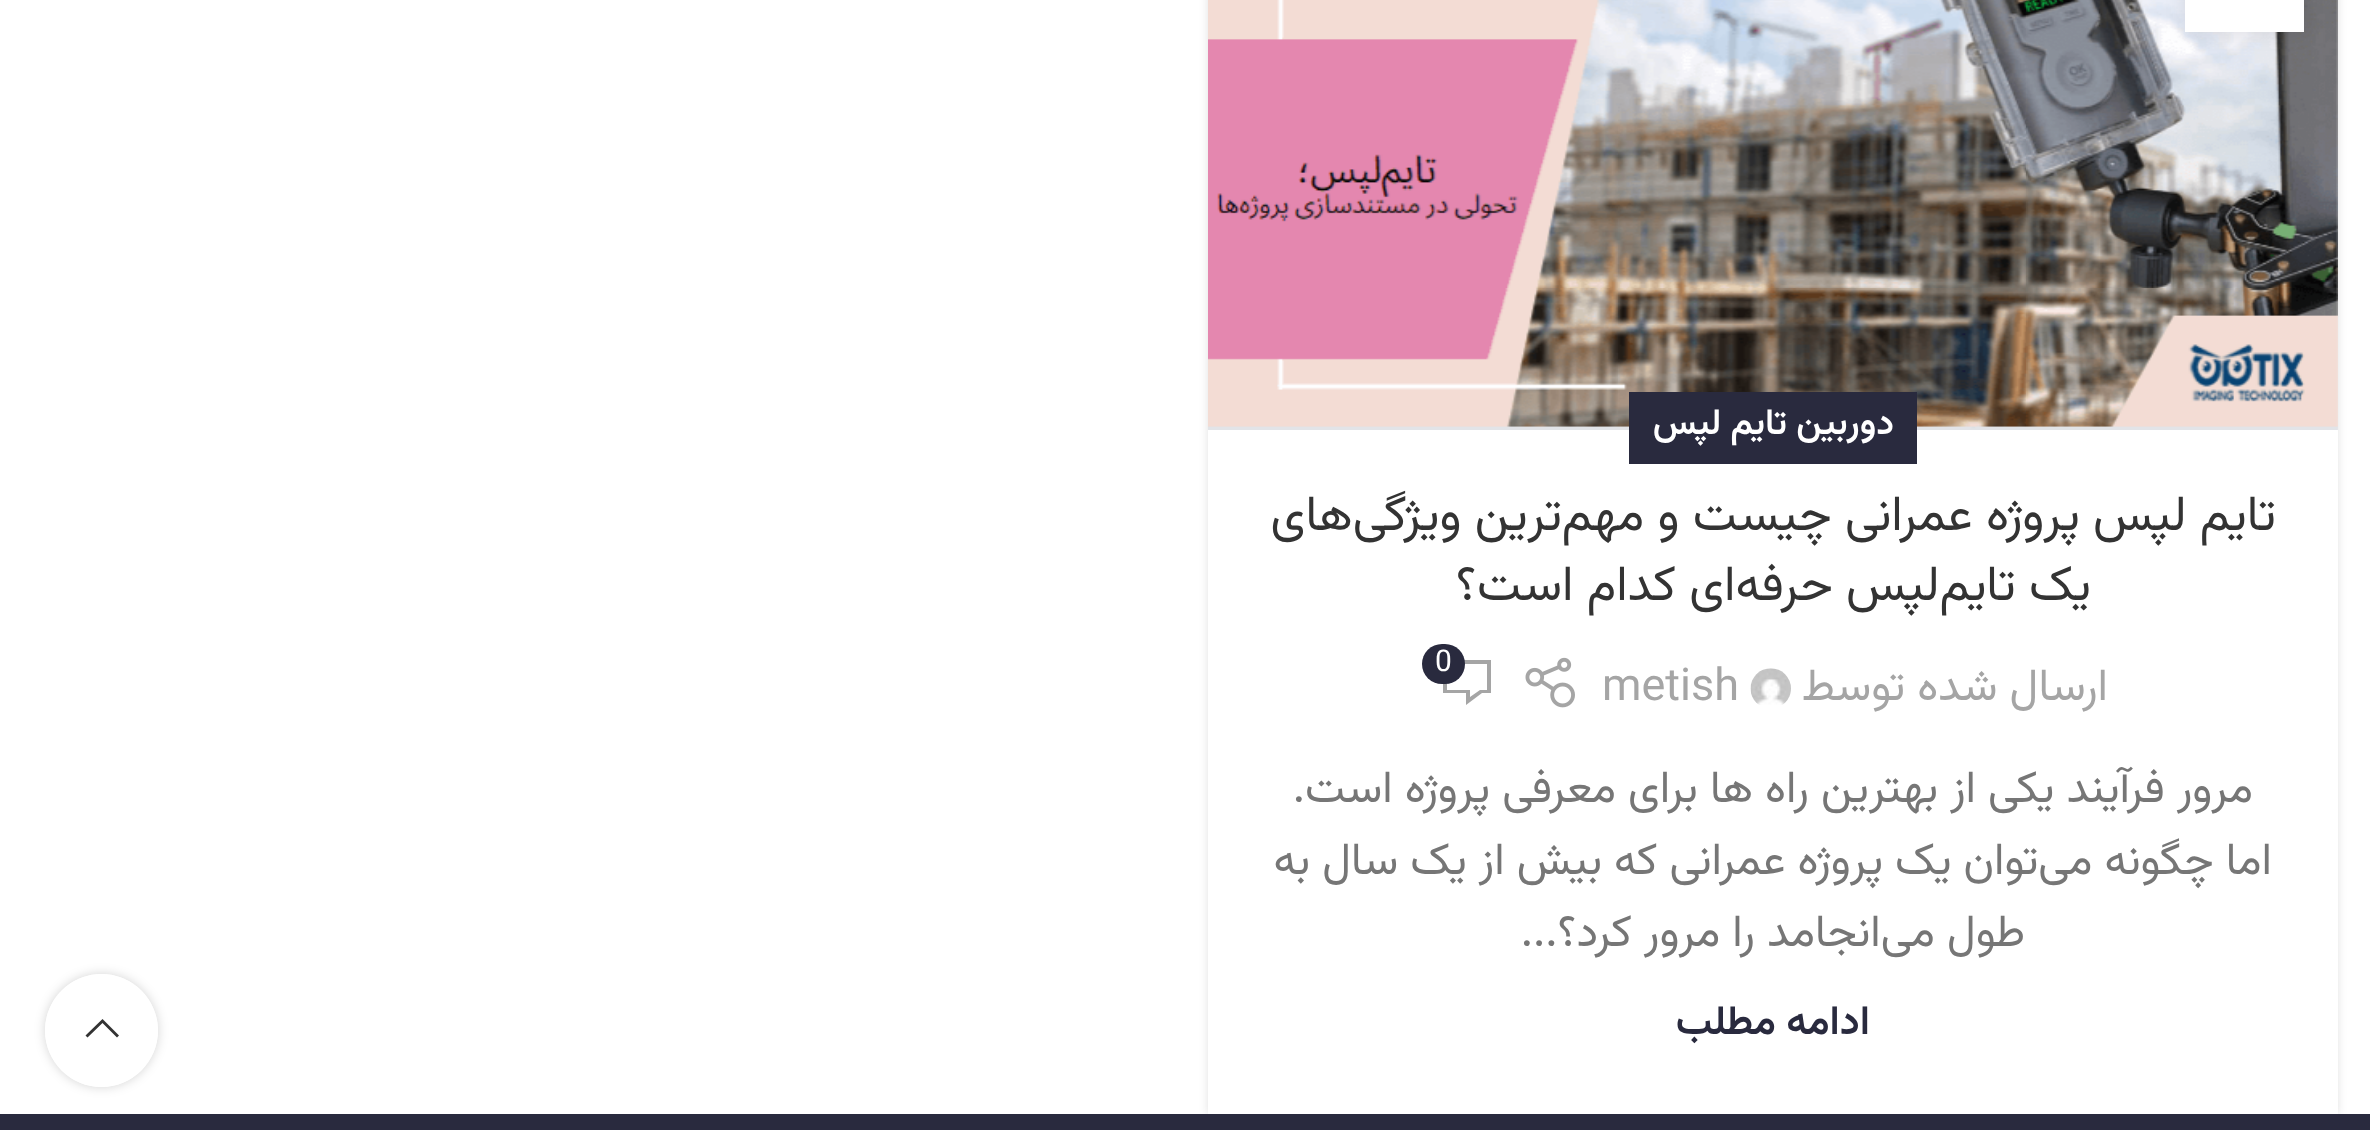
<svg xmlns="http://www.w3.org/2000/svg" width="2370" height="1130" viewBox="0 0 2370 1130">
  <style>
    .t1 { font: 600 36px Vazirmatn; direction: rtl; fill: #fff; }
    .t2 { font: 49.5px Vazirmatn; direction: rtl; fill: #333; }
    .t3 { font: 45px Vazirmatn; direction: rtl; fill: #a5a5a5; }
    .t4 { font: 45px Vazirmatn; fill: #a5a5a5; }
    .t5 { font: 30px Vazirmatn; fill: #fff; }
    .t6 { font: 45px Vazirmatn; direction: rtl; fill: #767676; }
    .t7 { font: 600 40.5px Vazirmatn; direction: rtl; fill: #292a3e; }
  </style>
  <defs>
    <clipPath id="clip1"><path d="M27 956H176V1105H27ZM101.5 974C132.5 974 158 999.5 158 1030.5C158 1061.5 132.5 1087 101.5 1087C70.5 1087 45 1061.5 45 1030.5C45 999.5 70.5 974 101.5 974Z" clip-rule="evenodd"/></clipPath>
  </defs>
  <rect width="100%" height="100%" fill="#fff"/>
  <rect x="1208" y="-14" width="1130" height="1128" fill="#0000001f" filter="blur(4.5px)"/>
  <image x="1208" y="0" width="1130" height="430" href="images/1.png"/>
  <rect x="2185" y="-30" width="119" height="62" fill="#0000001a" filter="blur(10px)"/>
  <rect x="2185" y="0" width="119" height="32" fill="#fff"/>
  <rect x="1208" y="430" width="1130" height="684" fill="#fff"/>
  <rect x="1629" y="392" width="288" height="72" fill="#292a3e"/>
  <text x="1894" y="434" class="t1">دوربین تایم لپس</text>
  <text x="2276" y="530" class="t2">تایم لپس پروژه‌ عمرانی چیست و مهم‌ترین ویژگی‌های</text>
  <text x="2091" y="600" class="t2">یک تایم‌لپس حرفه‌ای کدام است؟</text>
  <text x="2108" y="700" class="t3">ارسال شده توسط</text>
  <image x="1750" y="668" width="41" height="37" href="images/2.png"/>
  <text x="1602" y="700" class="t4">metish</text>
  <image x="1525" y="657" width="50" height="51" href="images/3.png"/>
  <path d="M1482 693H1491V660H1443V693H1466V705ZM1470 697V690H1447V664H1487V690H1480Z" fill="#a5a5a5"/>
  <rect x="1422" y="644" width="43" height="40" rx="20" fill="#292a3e"/>
  <text x="1435" y="671" class="t5">0</text>
  <text x="2253" y="802" class="t6">مرور فرآیند یکی از بهترین راه ها برای معرفی پروژه است.</text>
  <text x="2272" y="874" class="t6">اما چگونه می‌توان یک پروژه عمرانی که بیش از یک سال به</text>
  <text x="2025" y="946" class="t6">طول می‌انجامد را مرور کرد؟...</text>
  <text x="1870" y="1034" class="t7">ادامه مطلب</text>
  <rect x="0" y="1114" width="2370" height="16" fill="#292a3e"/>
  <g clip-path="url(#clip1)">
    <rect x="45" y="974" width="113" height="113" rx="56.5" fill="#0000002b" filter="blur(5.5px)"/>
  </g>
  <circle cx="101.5" cy="1030.5" r="56.5" fill="#ffffffe6"/>
  <path d="M117 1037.5L119 1035.5L102.5 1019L85.5 1035.5L87.5 1037.5L102.5 1023Z" fill="#333"/>
</svg>
